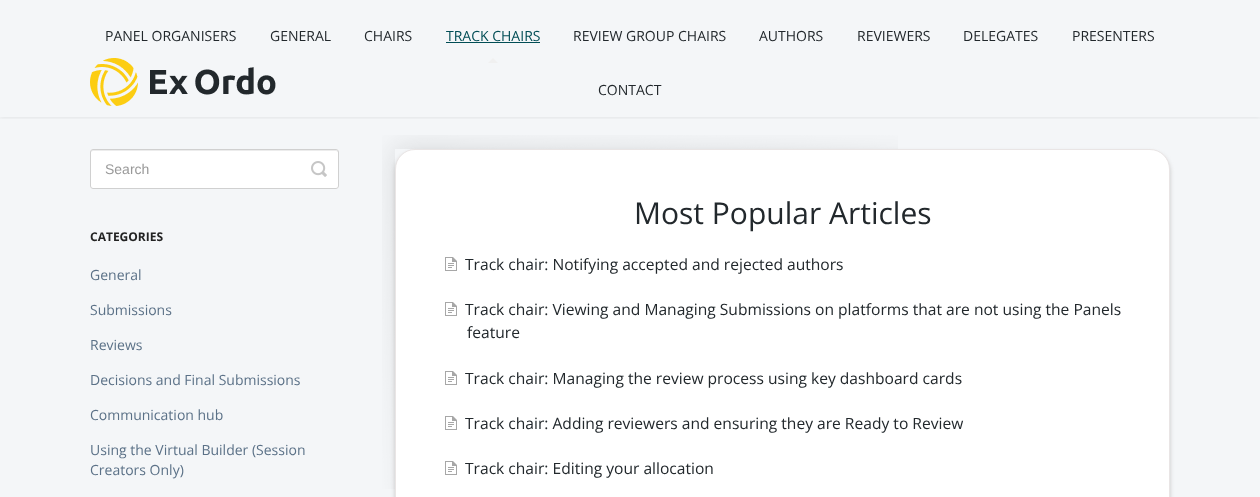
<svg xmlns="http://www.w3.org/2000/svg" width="1260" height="497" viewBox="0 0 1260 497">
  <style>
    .t1 { font: 14px Open Sans; fill: #22282c; }
    .t2 { font: 14px Open Sans; fill: #014d55; }
    .t3 { font: 14px Liberation Sans; fill: #999; }
    .t4 { font: bold 12px Open Sans; fill: #222; }
    .t5 { font: 14px Open Sans; fill: #5b7187; }
    .t6 { font: 30px Open Sans; fill: #22282c; }
    .t7 { font: 15.6px Open Sans; fill: #22282c; }
  </style>
  <defs>
    <clipPath id="clip1"><rect x="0" y="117" width="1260" height="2"/></clipPath>
  </defs>
  <rect width="100%" height="100%" fill="#f4f6f8"/>
  <g clip-path="url(#clip1)">
    <rect x="0" y="1" width="1260" height="117" fill="#00000012" filter="blur(2px)"/>
  </g>
  <text x="105" y="41" class="t1">PANEL ORGANISERS</text>
  <text x="270" y="41" class="t1">GENERAL</text>
  <text x="364" y="41" class="t1">CHAIRS</text>
  <text x="446" y="41" class="t2">TRACK CHAIRS</text>
  <rect x="446" y="42" width="94" height="1" fill="#014d55"/>
  <path d="M498 63H488L493 58Z" fill="#f0f0f0"/>
  <text x="573" y="41" class="t1">REVIEW GROUP CHAIRS</text>
  <text x="759" y="41" class="t1">AUTHORS</text>
  <text x="857" y="41" class="t1">REVIEWERS</text>
  <text x="963" y="41" class="t1">DELEGATES</text>
  <text x="1072" y="41" class="t1">PRESENTERS</text>
  <text x="598" y="95" class="t1">CONTACT</text>
  <image x="90" y="58" width="186" height="48" href="images/1.png"/>
  <rect x="90" y="149" width="249" height="40" rx="3" fill="#fff"/>
  <path d="M93 151H336C337 151 338 152 338 153V151L336 150H93C91 150 91 152 91 153C91 152 92 151 93 151Z" fill="#ececec"/>
  <rect x="90.5" y="149.5" width="248" height="39" rx="2.5" fill="none" stroke="#d0d0d0"/>
  <text x="105" y="174" class="t3">Search</text>
  <image x="311" y="161" width="16" height="16" href="images/2.png"/>
  <text x="90" y="241" class="t4">CATEGORIES</text>
  <text x="90" y="280" class="t5">General</text>
  <text x="90" y="315" class="t5">Submissions</text>
  <text x="90" y="350" class="t5">Reviews</text>
  <text x="90" y="385" class="t5">Decisions and Final Submissions</text>
  <text x="90" y="420" class="t5">Communication hub</text>
  <text x="90" y="455" class="t5">Using the Virtual Builder (Session</text>
  <text x="90" y="475" class="t5">Creators Only)</text>
  <image x="382" y="135" width="516" height="354" href="images/3.png"/>
  <rect x="395" y="152" width="775" height="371" rx="20" fill="#c7c6c6" filter="blur(2px)"/>
  <rect x="395.5" y="149.5" width="774" height="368" rx="19.5" fill="#fff" stroke="#e9e5e5"/>
  <text x="634" y="224" class="t6">Most Popular Articles</text>
  <image x="445" y="257" width="12" height="14" href="images/4.png"/>
  <text x="465" y="270" class="t7">Track chair: Notifying accepted and rejected authors</text>
  <image x="445" y="302" width="12" height="14" href="images/4.png"/>
  <text x="465" y="315" class="t7">Track chair: Viewing and Managing Submissions on platforms that are not using the Panels</text>
  <text x="467" y="338" class="t7">feature</text>
  <image x="445" y="371" width="12" height="14" href="images/4.png"/>
  <text x="465" y="384" class="t7">Track chair: Managing the review process using key dashboard cards</text>
  <image x="445" y="416" width="12" height="14" href="images/4.png"/>
  <text x="465" y="429" class="t7">Track chair: Adding reviewers and ensuring they are Ready to Review</text>
  <image x="445" y="461" width="12" height="14" href="images/4.png"/>
  <text x="465" y="474" class="t7">Track chair: Editing your allocation</text>
</svg>
